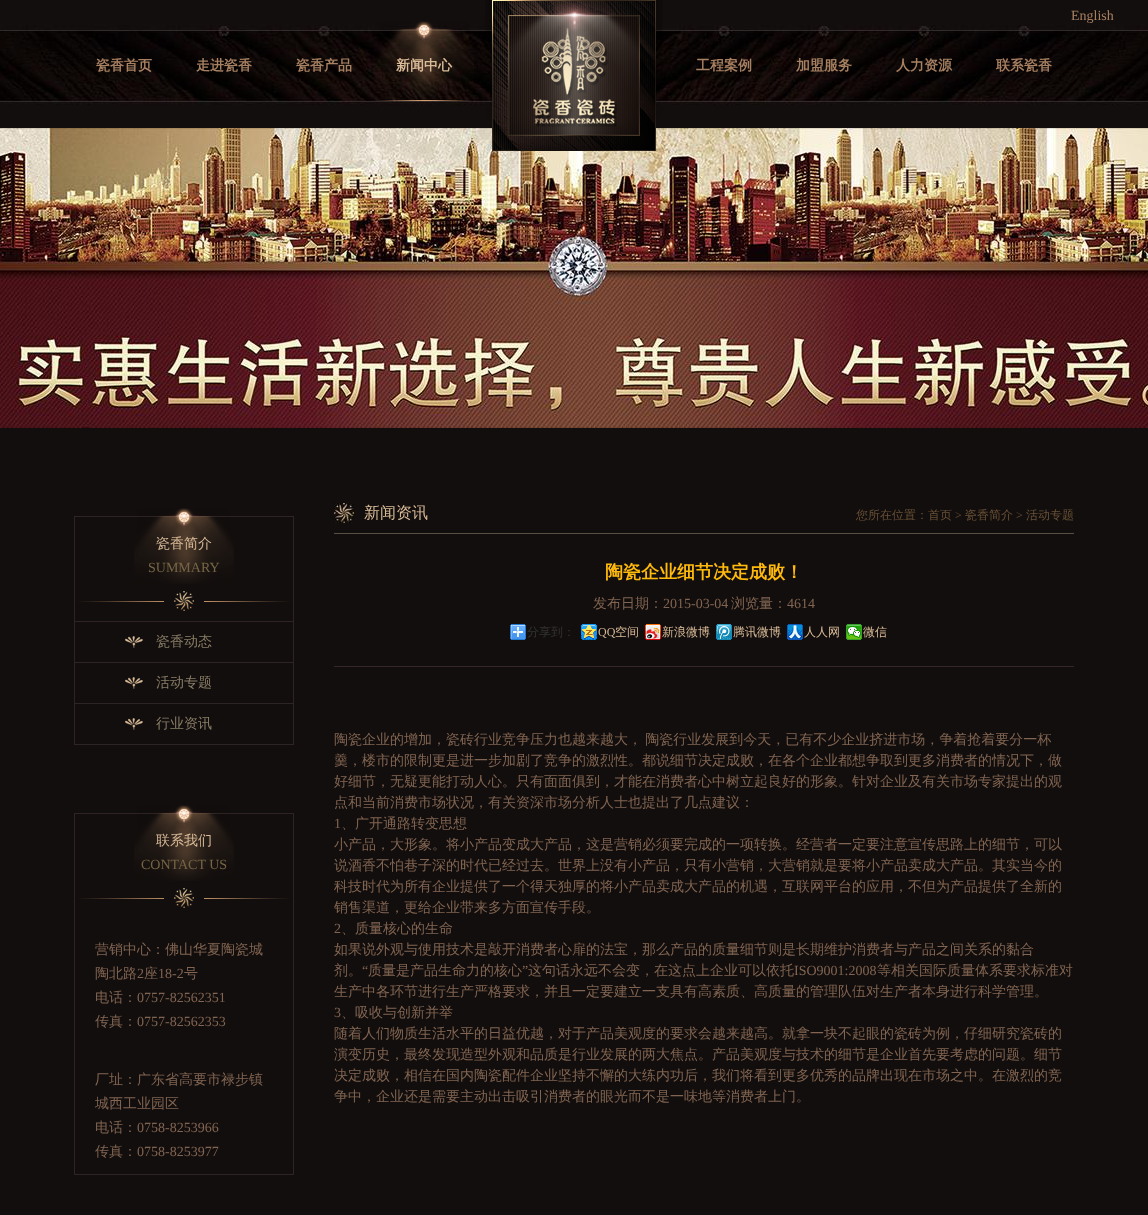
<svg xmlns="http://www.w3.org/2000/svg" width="1148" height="1215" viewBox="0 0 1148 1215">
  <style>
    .t1 { font: 14px Liberation Serif; fill: #a88162; }
    .t2 { font: bold 14px WenQuanYi Zen Hei; fill: #a88162; }
    .t3 { font: bold 14px WenQuanYi Zen Hei; fill: #d9bb98; }
    .t4 { font: 500 14px WenQuanYi Zen Hei; fill: #d9bb98; }
    .t5 { font: 14px Liberation Serif; fill: #766545; }
    .t6 { font: 500 14px WenQuanYi Zen Hei; fill: #897d66; }
    .t7 { font: 500 14px WenQuanYi Zen Hei; fill: #816451; }
    .t8 { font: 14px Liberation Serif; fill: #816451; }
    .t9 { font: 500 16px WenQuanYi Zen Hei; fill: #d9bb98; }
    .t10 { font: 500 12px WenQuanYi Zen Hei; fill: #695136; }
    .t11 { font: 12px Liberation Serif; fill: #695136; }
    .t12 { font: bold 18px WenQuanYi Zen Hei; fill: #ffba0b; }
    .t13 { font: 500 12px WenQuanYi Zen Hei; fill: #333; }
    .t14 { font: 12px Liberation Serif; fill: #d9bb98; }
    .t15 { font: 500 12px WenQuanYi Zen Hei; fill: #d9bb98; }
  </style>
  <rect width="100%" height="100%" fill="#120e0d"/>
  <image x="0" y="25" width="1148" height="80" href="images/1.png"/>
  <image x="0" y="128" width="1148" height="300" href="images/4.png"/>
  <image x="485" y="0" width="178" height="151" href="images/2.png"/>
  <text x="1071" y="20" class="t1">English</text>
  <text x="96" y="70" class="t2">瓷香首页</text>
  <text x="196" y="70" class="t2">走进瓷香</text>
  <text x="296" y="70" class="t2">瓷香产品</text>
  <image x="374" y="21" width="100" height="80" href="images/3.png"/>
  <text x="396" y="70" class="t3">新闻中心</text>
  <text x="696" y="70" class="t2">工程案例</text>
  <text x="796" y="70" class="t2">加盟服务</text>
  <text x="896" y="70" class="t2">人力资源</text>
  <text x="996" y="70" class="t2">联系瓷香</text>
  <rect x="74.5" y="516.5" width="219" height="228" fill="none" stroke="#2e2423"/>
  <image x="134" y="508" width="100" height="76" href="images/5.png"/>
  <text x="156" y="548" class="t4">瓷香简介</text>
  <text x="148" y="572" class="t5">SUMMARY</text>
  <image x="78" y="591" width="212" height="20" href="images/6.png"/>
  <rect x="75" y="621" width="218" height="1" fill="#2e2423"/>
  <image x="125" y="636" width="18" height="12" href="images/7.png"/>
  <text x="156" y="646" class="t6">瓷香动态</text>
  <rect x="75" y="662" width="218" height="1" fill="#2e2423"/>
  <image x="125" y="677" width="18" height="12" href="images/7.png"/>
  <text x="156" y="687" class="t6">活动专题</text>
  <rect x="75" y="703" width="218" height="1" fill="#2e2423"/>
  <image x="125" y="718" width="18" height="12" href="images/7.png"/>
  <text x="156" y="728" class="t6">行业资讯</text>
  <rect x="74.5" y="813.5" width="219" height="361" fill="none" stroke="#2e2423"/>
  <image x="134" y="805" width="100" height="76" href="images/5.png"/>
  <text x="156" y="845" class="t4">联系我们</text>
  <text x="141" y="869" class="t5">CONTACT US</text>
  <image x="78" y="888" width="212" height="20" href="images/6.png"/>
  <text x="95" y="954" class="t7">营销中心：佛山华夏陶瓷城</text>
  <text x="95" y="978" class="t7">陶北路</text>
  <text x="137" y="978" class="t8">2</text>
  <text x="144" y="978" class="t7">座</text>
  <text x="158" y="978" class="t8">18-2</text>
  <text x="184" y="978" class="t7">号</text>
  <text x="95" y="1002" class="t7">电话：</text>
  <text x="137" y="1002" class="t8">0757-82562351</text>
  <text x="95" y="1026" class="t7">传真：</text>
  <text x="137" y="1026" class="t8">0757-82562353</text>
  <text x="95" y="1084" class="t7">厂址：广东省高要市禄步镇</text>
  <text x="95" y="1108" class="t7">城西工业园区</text>
  <text x="95" y="1132" class="t7">电话：</text>
  <text x="137" y="1132" class="t8">0758-8253966</text>
  <text x="95" y="1156" class="t7">传真：</text>
  <text x="137" y="1156" class="t8">0758-8253977</text>
  <image x="334" y="503" width="20" height="20" href="images/8.png"/>
  <rect x="334" y="533" width="740" height="1" fill="#575042"/>
  <text x="364" y="518" class="t9">新闻资讯</text>
  <text x="856" y="519" class="t10">您所在位置：首页</text>
  <text x="955" y="519" class="t11">&gt;</text>
  <text x="965" y="519" class="t10">瓷香简介</text>
  <text x="1016" y="519" class="t11">&gt;</text>
  <text x="1026" y="519" class="t10">活动专题</text>
  <text x="605" y="578" class="t12">陶瓷企业细节决定成败！</text>
  <text x="593" y="608" class="t7">发布日期：</text>
  <text x="663" y="608" class="t8">2015-03-04</text>
  <text x="731" y="608" class="t7">浏览量：</text>
  <text x="787" y="608" class="t8">4614</text>
  <image x="510" y="624" width="16" height="16" href="images/9.png"/>
  <text x="527" y="636" class="t13">分享到：</text>
  <image x="581" y="624" width="16" height="16" href="images/10.png"/>
  <text x="598" y="636" class="t14">QQ</text>
  <text x="615" y="636" class="t15">空间</text>
  <image x="645" y="624" width="16" height="16" href="images/11.png"/>
  <text x="662" y="636" class="t15">新浪微博</text>
  <image x="716" y="624" width="16" height="16" href="images/12.png"/>
  <text x="733" y="636" class="t15">腾讯微博</text>
  <image x="787" y="624" width="16" height="16" href="images/13.png"/>
  <text x="804" y="636" class="t15">人人网</text>
  <image x="846" y="624" width="16" height="16" href="images/14.png"/>
  <text x="863" y="636" class="t15">微信</text>
  <rect x="334" y="666" width="740" height="1" fill="#342928"/>
  <text x="334" y="744" word-spacing="-1" class="t7">陶瓷企业的增加，瓷砖行业竞争压力也越来越大， 陶瓷行业发展到今天，已有不少企业挤进市场，争着抢着要分一杯</text>
  <text x="334" y="765" class="t7">羹，楼市的限制更是进一步加剧了竞争的激烈性。都说细节决定成败，在各个企业都想争取到更多消费者的情况下，做</text>
  <text x="334" y="786" class="t7">好细节，无疑更能打动人心。只有面面俱到，才能在消费者心中树立起良好的形象。针对企业及有关市场专家提出的观</text>
  <text x="334" y="807" class="t7">点和当前消费市场状况，有关资深市场分析人士也提出了几点建议：</text>
  <text x="334" y="828" class="t8">1</text>
  <text x="341" y="828" class="t7">、广开通路转变思想</text>
  <text x="334" y="849" class="t7">小产品，大形象。将小产品变成大产品，这是营销必须要完成的一项转换。经营者一定要注意宣传思路上的细节，可以</text>
  <text x="334" y="870" class="t7">说酒香不怕巷子深的时代已经过去。世界上没有小产品，只有小营销，大营销就是要将小产品卖成大产品。其实当今的</text>
  <text x="334" y="891" class="t7">科技时代为所有企业提供了一个得天独厚的将小产品卖成大产品的机遇，互联网平台的应用，不但为产品提供了全新的</text>
  <text x="334" y="912" class="t7">销售渠道，更给企业带来多方面宣传手段。</text>
  <text x="334" y="933" class="t8">2</text>
  <text x="341" y="933" class="t7">、质量核心的生命</text>
  <text x="334" y="954" class="t7">如果说外观与使用技术是敲开消费者心扉的法宝，那么产品的质量细节则是长期维护消费者与产品之间关系的黏合</text>
  <text x="334" y="975" class="t7">剂。</text>
  <text x="362" y="975" class="t8">“</text>
  <text x="368" y="975" class="t7">质量是产品生命力的核心</text>
  <text x="522" y="975" class="t8">”</text>
  <text x="528" y="975" class="t7">这句话永远不会变，在这点上企业可以依托</text>
  <text x="794" y="975" class="t8">ISO9001:2008</text>
  <text x="877" y="975" class="t7">等相关国际质量体系要求标准对</text>
  <text x="334" y="996" class="t7">生产中各环节进行生产严格要求，并且一定要建立一支具有高素质、高质量的管理队伍对生产者本身进行科学管理。</text>
  <text x="334" y="1017" class="t8">3</text>
  <text x="341" y="1017" class="t7">、吸收与创新并举</text>
  <text x="334" y="1038" class="t7">随着人们物质生活水平的日益优越，对于产品美观度的要求会越来越高。就拿一块不起眼的瓷砖为例，仔细研究瓷砖的</text>
  <text x="334" y="1059" class="t7">演变历史，最终发现造型外观和品质是行业发展的两大焦点。产品美观度与技术的细节是企业首先要考虑的问题。细节</text>
  <text x="334" y="1080" class="t7">决定成败，相信在国内陶瓷配件企业坚持不懈的大练内功后，我们将看到更多优秀的品牌出现在市场之中。在激烈的竞</text>
  <text x="334" y="1101" class="t7">争中，企业还是需要主动出击吸引消费者的眼光而不是一味地等消费者上门。</text>
</svg>
